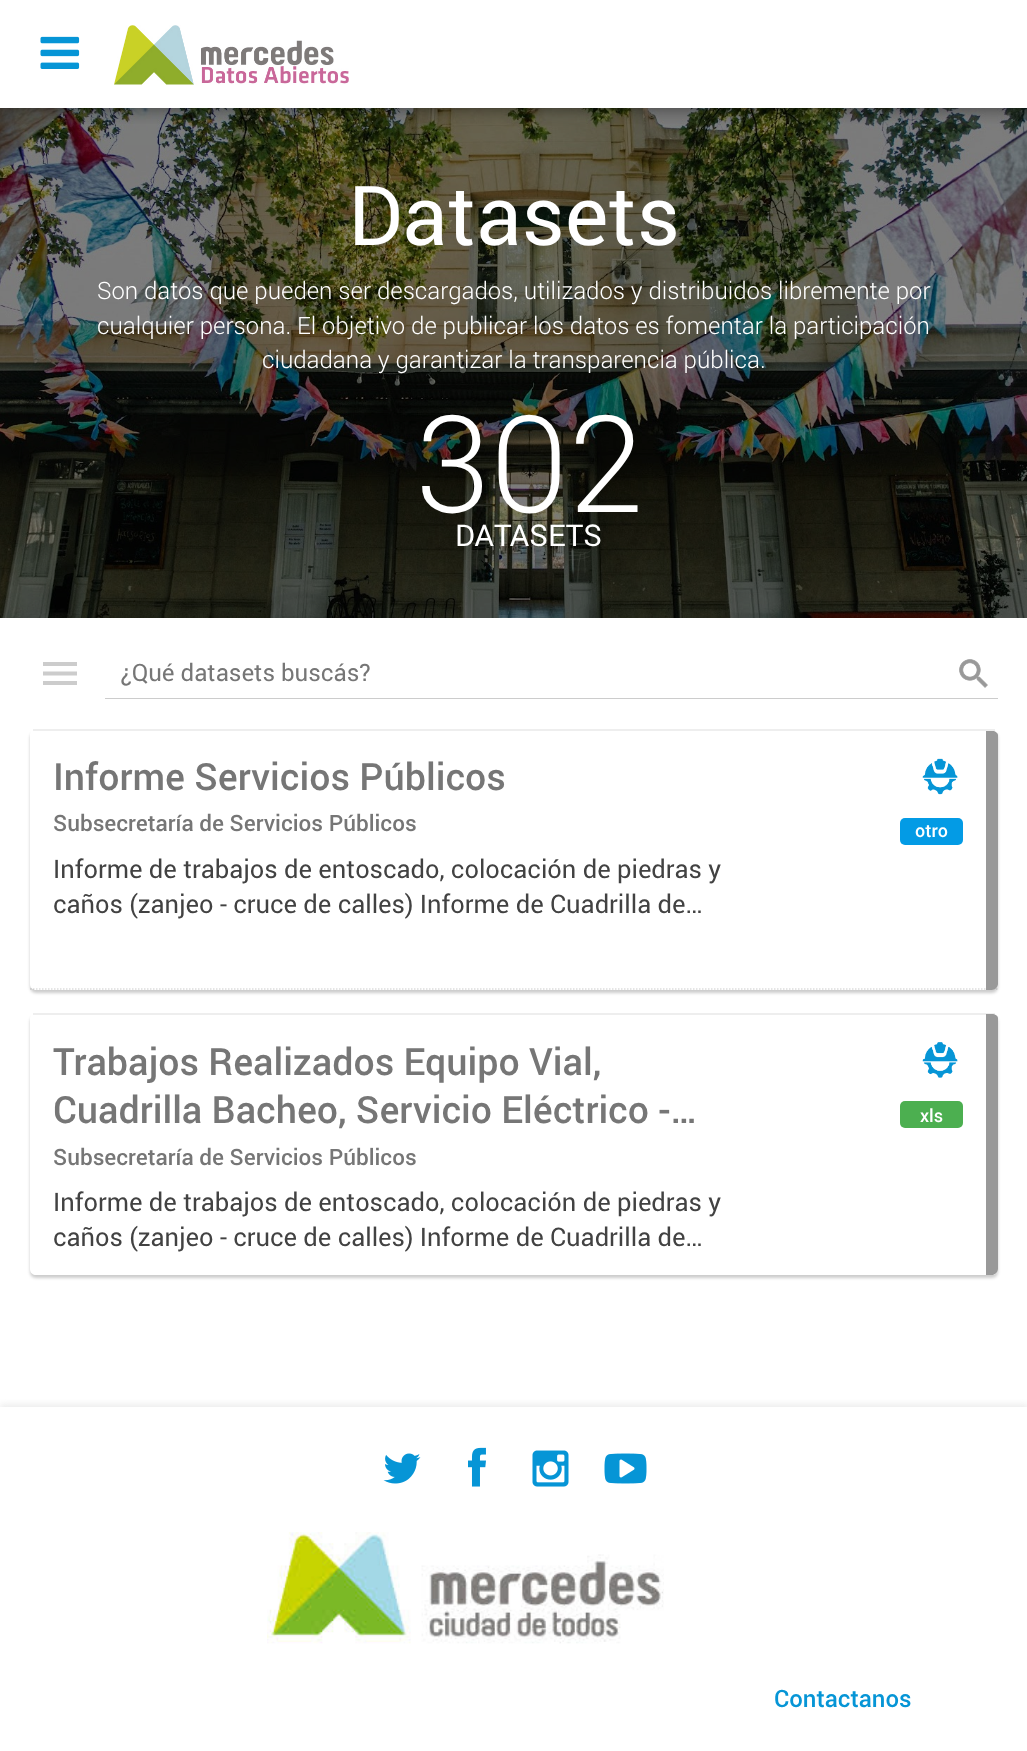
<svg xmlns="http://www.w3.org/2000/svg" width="1027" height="1751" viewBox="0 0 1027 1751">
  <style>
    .t1 { font: 82.5px Roboto; fill: #fff; }
    .t2 { font: 300 24px Roboto; fill: #fff; }
    .t3 { font: 300 135px Roboto; fill: #fff; }
    .t4 { font: 30px Roboto; fill: #fff; }
    .t5 { font: 24px Roboto; fill: #767676; }
    .t6 { font: 500 37.5px Roboto; fill: #767676; }
    .t7 { font: 500 22.5px Roboto; fill: #767676; }
    .t8 { font: 25.5px Roboto; fill: #424242; }
    .t9 { font: 500 18px Roboto; fill: #fff; }
    .t10 { font: 500 24px Roboto; fill: #0695d6; }
  </style>
  <defs>
    <clipPath id="clip1"><rect x="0" y="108" width="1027" height="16"/></clipPath>
    <clipPath id="clip2"><path d="M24 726H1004V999H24ZM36 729H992C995.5 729 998 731.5 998 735V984C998 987.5 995.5 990 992 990H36C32.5 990 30 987.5 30 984V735C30 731.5 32.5 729 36 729Z" clip-rule="evenodd"/></clipPath>
    <clipPath id="clip3"><path d="M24 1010H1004V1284H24ZM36 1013H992C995.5 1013 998 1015.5 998 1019V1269C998 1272.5 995.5 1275 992 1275H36C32.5 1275 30 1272.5 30 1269V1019C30 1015.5 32.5 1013 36 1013Z" clip-rule="evenodd"/></clipPath>
    <clipPath id="clip4"><rect x="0" y="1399" width="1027" height="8"/></clipPath>
  </defs>
  <rect width="100%" height="100%" fill="#fff"/>
  <image x="0" y="108" width="1027" height="510" href="images/3.png"/>
  <g clip-path="url(#clip1)">
    <rect x="0" y="0" width="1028" height="108" fill="#00000080" filter="blur(9px)"/>
  </g>
  <image x="40" y="36" width="40" height="33" href="images/1.png"/>
  <image x="114" y="25" width="235" height="60" href="images/2.png"/>
  <text x="348" y="245" class="t1">Datasets</text>
  <text x="97" y="299" class="t2">Son datos que pueden ser descargados, utilizados y distribuidos libremente por</text>
  <text x="97" y="334" class="t2">cualquier persona. El objetivo de publicar los datos es fomentar la participación</text>
  <text x="262" y="368" class="t2">ciudadana y garantizar la transparencia pública.</text>
  <text x="415" y="512" class="t3">302</text>
  <text x="455" y="546" class="t4">DATASETS</text>
  <path d="M43 685H77V681H43ZM43 675.5H77V671.5H43ZM43 662V666H77V662Z" fill="#ccc"/>
  <rect x="105" y="698" width="893" height="1" fill="#ccc"/>
  <text x="120" y="681" class="t5">¿Qué datasets buscás?</text>
  <image x="959" y="659" width="29" height="29" href="images/4.png"/>
  <path d="M30 989H997.5" fill="none" stroke="#ddd" stroke-width="1.5" stroke-dasharray="1.5 1.5"/>
  <g clip-path="url(#clip2)">
    <rect x="30" y="732" width="968" height="261" rx="6" fill="#00000033" filter="blur(1.5px)"/>
  </g>
  <rect x="33" y="729" width="962" height="2" fill="#eee"/>
  <path d="M986 731V990H992C995 990 998 987 998 984V735C998 733 996 732 994 731Z" fill="#999"/>
  <text x="53" y="790" class="t6">Informe Servicios Públicos</text>
  <text x="53" y="831" class="t7">Subsecretaría de Servicios Públicos</text>
  <text x="53" y="878" class="t8">Informe de trabajos de entoscado, colocación de piedras y</text>
  <text x="53" y="913" class="t8">caños (zanjeo - cruce de calles) Informe de Cuadrilla de…</text>
  <image x="922" y="758" width="36" height="37" href="images/5.png"/>
  <rect x="900" y="818" width="63" height="27" rx="5" fill="#039be5"/>
  <text x="915" y="837" class="t9">otro</text>
  <g clip-path="url(#clip3)">
    <rect x="30" y="1016" width="968" height="262" rx="6" fill="#00000033" filter="blur(1.5px)"/>
  </g>
  <rect x="33" y="1013" width="962" height="2" fill="#eee"/>
  <path d="M986 1014V1275H992C995 1275 998 1272 998 1269V1018C998 1016 995 1014 992 1014Z" fill="#999"/>
  <text x="53" y="1075" class="t6">Trabajos Realizados Equipo Vial,</text>
  <text x="53" y="1123" class="t6">Cuadrilla Bacheo, Servicio Eléctrico -…</text>
  <text x="53" y="1165" class="t7">Subsecretaría de Servicios Públicos</text>
  <text x="53" y="1211" class="t8">Informe de trabajos de entoscado, colocación de piedras y</text>
  <text x="53" y="1246" class="t8">caños (zanjeo - cruce de calles) Informe de Cuadrilla de…</text>
  <image x="922" y="1042" width="36" height="36" href="images/6.png"/>
  <rect x="900" y="1101" width="63" height="27" rx="5" fill="#4caf50"/>
  <text x="920" y="1122" class="t9">xls</text>
  <g clip-path="url(#clip4)">
    <rect x="0" y="1404" width="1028" height="345" fill="#dcdcdc80" filter="blur(3px)"/>
  </g>
  <image x="383" y="1453" width="38" height="31" href="images/7.png"/>
  <image x="468" y="1447" width="18" height="40" href="images/8.png"/>
  <image x="532" y="1450" width="37" height="37" href="images/9.png"/>
  <image x="604" y="1453" width="43" height="31" href="images/10.png"/>
  <image x="267" y="1532" width="397" height="112" href="images/11.png"/>
  <text x="774" y="1707" class="t10">Contactanos</text>
</svg>
